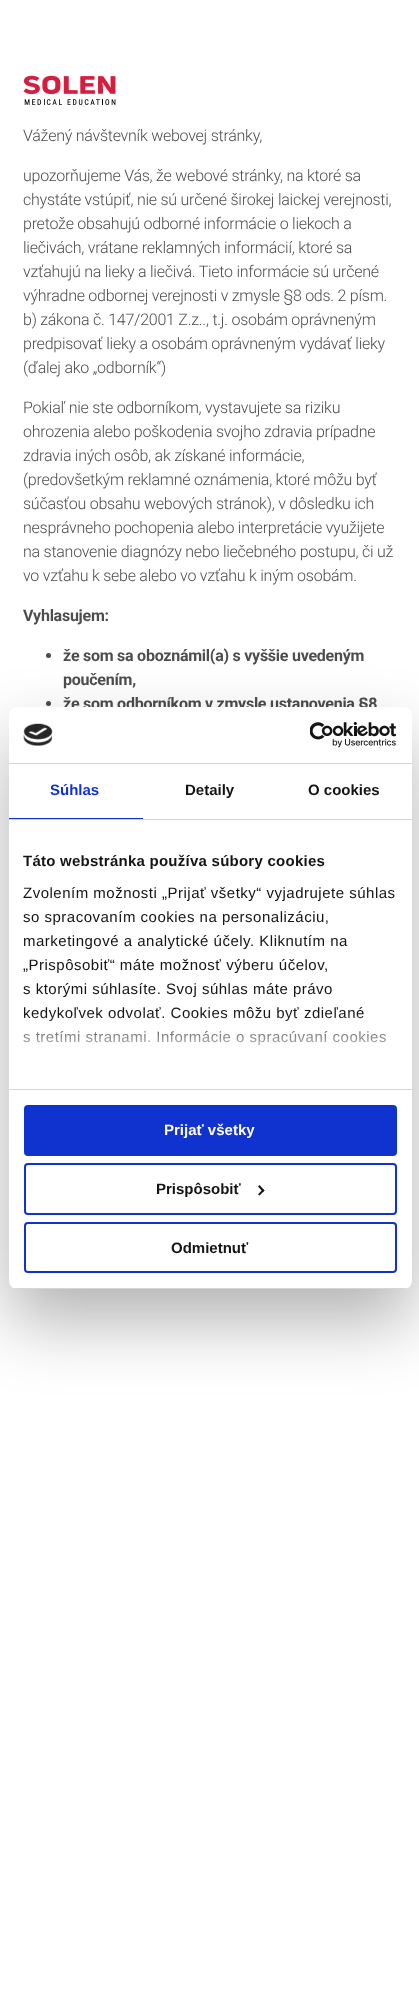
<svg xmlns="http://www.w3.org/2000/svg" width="419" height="1996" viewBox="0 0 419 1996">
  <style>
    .t1 { font: 300 16px Roboto; letter-spacing: -0.25px; fill: #4d4d4d; }
    .t2 { font: bold 16px Roboto; letter-spacing: -0.25px; fill: #4d4d4d; }
    .t3 { font: bold 15px Liberation Sans; fill: #1032cf; }
    .t4 { font: bold 15px Liberation Sans; fill: #141414; }
    .t5 { font: bold 15px Liberation Sans; letter-spacing: 0.25px; fill: #141414; }
    .t6 { font: 15px Liberation Sans; letter-spacing: 0.5px; fill: #141414; }
    .t7 { font: bold 15px Liberation Sans; fill: #fff; }
  </style>
  <defs>
    <linearGradient id="g1" gradientUnits="userSpaceOnUse" x1="204" y1="1089" x2="204" y2="1014"><stop offset="0" stop-color="#fff"/><stop offset="0.5" stop-color="#fff" stop-opacity="0.8"/><stop offset="1" stop-color="#fff" stop-opacity="0"/></linearGradient>
    <clipPath id="clip1"><rect x="9" y="707" width="403" height="582" rx="8"/></clipPath>
  </defs>
  <rect width="100%" height="100%" fill="#fff"/>
  <image x="23" y="75" width="93" height="30" href="images/1.png"/>
  <text x="23" y="141" class="t1">Vážený návštevník webovej stránky,</text>
  <text x="23" y="181" class="t1">upozorňujeme Vás, že webové stránky, na ktoré sa</text>
  <text x="23" y="205" class="t1">chystáte vstúpiť, nie sú určené širokej laickej verejnosti,</text>
  <text x="23" y="229" class="t1">pretože obsahujú odborné informácie o liekoch a</text>
  <text x="23" y="253" class="t1">liečivách, vrátane reklamných informácií, ktoré sa</text>
  <text x="23" y="277" class="t1">vzťahujú na lieky a liečivá. Tieto informácie sú určené</text>
  <text x="23" y="301" class="t1">výhradne odbornej verejnosti v zmysle §8 ods. 2 písm.</text>
  <text x="23" y="325" class="t1">b) zákona č. 147/2001 Z.z.., t.j. osobám oprávneným</text>
  <text x="23" y="349" class="t1">predpisovať lieky a osobám oprávneným vydávať lieky</text>
  <text x="23" y="373" class="t1">(ďalej ako „odborník“)</text>
  <text x="23" y="413" class="t1">Pokiaľ nie ste odborníkom, vystavujete sa riziku</text>
  <text x="23" y="437" class="t1">ohrozenia alebo poškodenia svojho zdravia prípadne</text>
  <text x="23" y="461" class="t1">zdravia iných osôb, ak získané informácie,</text>
  <text x="23" y="485" class="t1">(predovšetkým reklamné oznámenia, ktoré môžu byť</text>
  <text x="23" y="509" class="t1">súčasťou obsahu webových stránok), v dôsledku ich</text>
  <text x="23" y="533" class="t1">nesprávneho pochopenia alebo interpretácie využijete</text>
  <text x="23" y="557" class="t1">na stanovenie diagnózy nebo liečebného postupu, či už</text>
  <text x="23" y="581" class="t1">vo vzťahu k sebe alebo vo vzťahu k iným osobám.</text>
  <text x="23" y="621" class="t2">Vyhlasujem:</text>
  <circle cx="48.5" cy="655.5" r="2.5" fill="#4d4d4d"/>
  <text x="63" y="661" class="t2">že som sa oboznámil(a) s vyššie uvedeným</text>
  <text x="63" y="685" class="t2">poučením,</text>
  <circle cx="48.5" cy="703.5" r="2.5" fill="#4d4d4d"/>
  <text x="63" y="709" class="t2">že som odborníkom v zmysle ustanovenia §8</text>
  <rect x="9" y="739" width="403" height="582" rx="8" fill="#0000004d" filter="blur(34px)"/>
  <rect x="9" y="707" width="403" height="582" rx="8" fill="#fff"/>
  <rect x="9" y="763" width="403" height="1" fill="#d6d6d6"/>
  <image x="23" y="723" width="30" height="23" href="images/2.png"/>
  <image x="310" y="722" width="87" height="26" href="images/3.png"/>
  <rect x="9" y="819" width="403" height="1" fill="#d6d6d6"/>
  <rect x="9" y="818" width="134" height="1" fill="#1032cf"/>
  <text x="50" y="795" class="t3">Súhlas</text>
  <text x="185" y="795" class="t4">Detaily</text>
  <text x="308" y="795" class="t4">O cookies</text>
  <rect x="9" y="1089" width="403" height="1" fill="#d6d6d6"/>
  <text x="23" y="866" class="t5">Táto webstránka používa súbory cookies</text>
  <text x="23" y="898" class="t6">Zvolením možnosti „Prijať všetky“ vyjadrujete súhlas</text>
  <text x="23" y="922" class="t6">so spracovaním cookies na personalizáciu,</text>
  <text x="23" y="946" class="t6">marketingové a analytické účely. Kliknutím na</text>
  <text x="23" y="970" class="t6">„Prispôsobiť“ máte možnosť výberu účelov,</text>
  <text x="23" y="994" class="t6">s ktorými súhlasíte. Svoj súhlas máte právo</text>
  <text x="23" y="1018" class="t6">kedykoľvek odvolať. Cookies môžu byť zdieľané</text>
  <text x="23" y="1042" class="t6">s tretími stranami. Informácie o spracúvaní cookies</text>
  <rect x="23" y="1015" width="363" height="31" fill="url(#g1)"/>
  <g clip-path="url(#clip1)">
    <rect x="9" y="1288" width="403" height="1" fill="#d6d6d6"/>
  </g>
  <rect x="25" y="1106" width="371" height="49" rx="3" fill="#1032cf" stroke="#1032cf" stroke-width="2"/>
  <text x="164" y="1135" class="t7">Prijať všetky</text>
  <rect x="25" y="1164" width="371" height="50" rx="3" fill="none" stroke="#1032cf" stroke-width="2"/>
  <text x="156" y="1194" class="t4">Prispôsobiť</text>
  <path d="M259.5 1185L264.5 1190.5L263 1192L258 1186.5Z" fill="#141414"/>
  <path d="M263 1189L264.5 1190.5L259.5 1195.5L258 1194.5Z" fill="#141414"/>
  <rect x="25" y="1223" width="371" height="49" rx="3" fill="none" stroke="#1032cf" stroke-width="2"/>
  <text x="171" y="1253" class="t4">Odmietnuť</text>
</svg>
